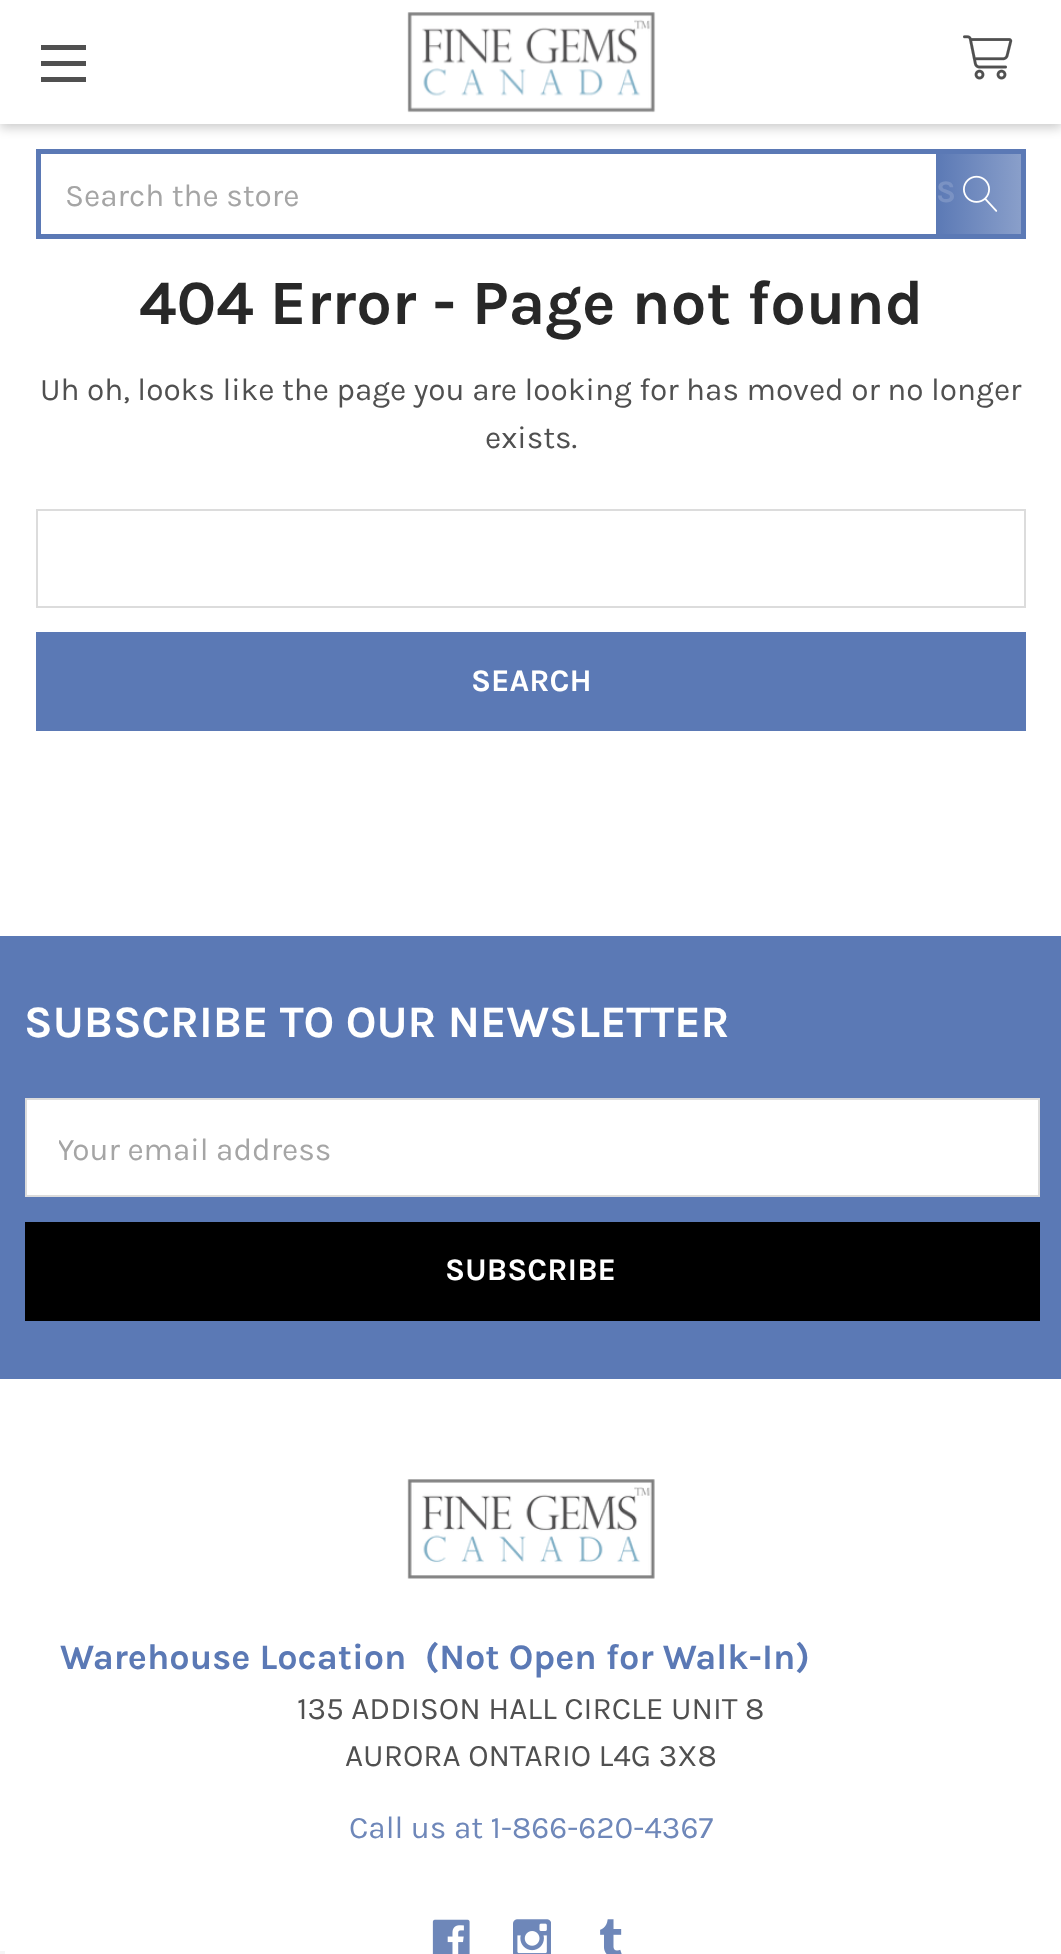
<svg xmlns="http://www.w3.org/2000/svg" width="1061" height="1954" viewBox="0 0 1061 1954">
  <style>
    .t1 { font: 31.5px Karla; fill: #a5a5a5; }
    .t2 { font: bold 31.5px Karla; fill: #7a92c3; }
    .t3 { font: bold 63px Karla; fill: #282828; }
    .t4 { font: 31.5px Karla; fill: #505050; }
    .t5 { font: bold 31.5px Karla; fill: #fff; }
    .t6 { font: bold 45px Karla; fill: #fff; }
    .t7 { font: bold 36px Karla; fill: #5b79b5; }
    .t8 { font: 31.5px Karla; fill: #6e87b9; }
  </style>
  <defs>
    <linearGradient id="g1" gradientUnits="userSpaceOnUse" x1="936" y1="194" x2="1026" y2="194"><stop offset="0" stop-color="#5b79b5"/><stop offset="1" stop-color="#5b79b5" stop-opacity="0.7"/></linearGradient>
    <clipPath id="clip1"><rect x="59" y="1130" width="947" height="38"/></clipPath>
  </defs>
  <rect width="100%" height="100%" fill="#fff"/>
  <rect x="0" y="5" width="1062" height="123" fill="#00000033" filter="blur(5.5px)"/>
  <rect x="0" y="0" width="1061" height="124" fill="#fff"/>
  <rect x="41" y="61" width="45" height="5" fill="#505050"/>
  <rect x="41" y="45" width="45" height="5" fill="#505050"/>
  <rect x="41" y="77" width="45" height="5" fill="#505050"/>
  <image x="407" y="12" width="249" height="101" href="images/1.png"/>
  <image x="963" y="35" width="50" height="45" href="images/2.png"/>
  <rect x="38.5" y="151.5" width="985" height="85" fill="none" stroke="#5b79b5" stroke-width="5"/>
  <text x="65" y="206" class="t1">Search the store</text>
  <rect x="936" y="154" width="85" height="80" fill="url(#g1)"/>
  <text x="936" y="202" class="t2">S</text>
  <image x="963" y="175" width="35" height="37" href="images/3.png"/>
  <text x="139" y="324" class="t3">404 Error - Page not found</text>
  <text x="40" y="400" class="t4">Uh oh, looks like the page you are looking for has moved or no longer</text>
  <text x="485" y="448" class="t4">exists.</text>
  <rect x="37" y="510" width="988" height="97" fill="none" stroke="#dcdcdc" stroke-width="2"/>
  <rect x="36" y="632" width="990" height="99" fill="#5b79b5"/>
  <text x="471" y="691" class="t5">SEARCH</text>
  <rect x="0" y="936" width="1061" height="443" fill="#5b79b5"/>
  <text x="24" y="1037" class="t6">SUBSCRIBE TO OUR NEWSLETTER</text>
  <rect x="26" y="1099" width="1013" height="97" fill="#fff" stroke="#dcdcdc" stroke-width="2"/>
  <g clip-path="url(#clip1)">
    <text x="57" y="1160" class="t1">Your email address</text>
  </g>
  <rect x="25" y="1222" width="1015" height="99" fill="#000"/>
  <text x="445" y="1280" class="t5">SUBSCRIBE</text>
  <image x="407" y="1479" width="248" height="100" href="images/4.png"/>
  <text x="60" y="1669" class="t7" xml:space="preserve">Warehouse Location  (Not Open for Walk-In)</text>
  <text x="297" y="1719" class="t4">135 ADDISON HALL CIRCLE UNIT 8</text>
  <text x="345" y="1766" class="t4">AURORA ONTARIO L4G 3X8</text>
  <text x="349" y="1838" class="t8">Call us at 1-866-620-4367</text>
  <image x="432" y="1919" width="38" height="35" href="images/5.png"/>
  <image x="513" y="1919" width="38" height="35" href="images/6.png"/>
  <image x="600" y="1919" width="22" height="35" href="images/7.png"/>
  <rect x="0" y="1951" width="5" height="3" fill="#f5f5f5"/>
</svg>
